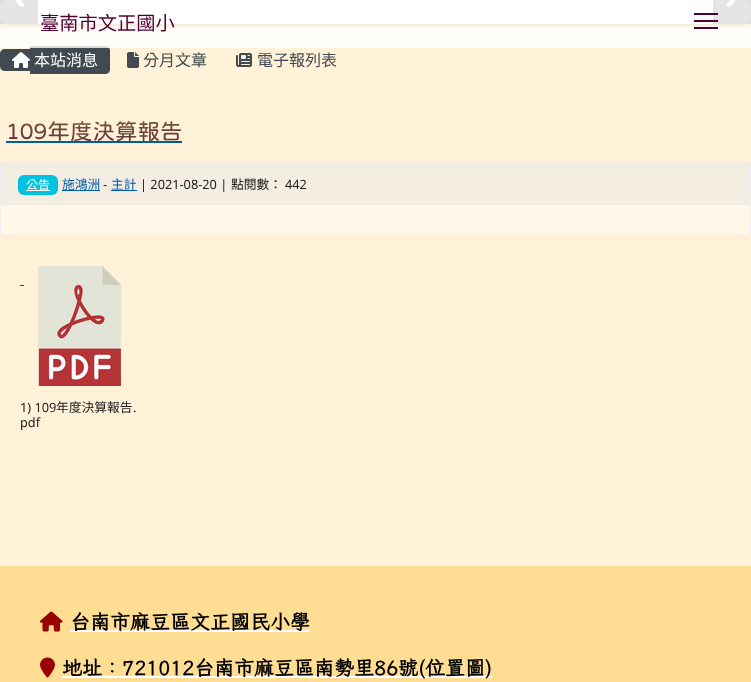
<svg xmlns="http://www.w3.org/2000/svg" width="751" height="682" viewBox="0 0 751 682">
  <style>
    .t1 { font: 19.25px Noto Sans CJK TC; fill: #520033; }
    .t2 { font: 16px Noto Sans CJK TC; fill: #fff; }
    .t3 { font: 16px Noto Sans CJK TC; fill: #404a50; }
    .t4 { font: 22.5px 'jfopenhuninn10'; fill: url(#g1); }
    .t5 { font: 12px Noto Sans CJK TC; fill: #fff; }
    .t6 { font: 12.75px Noto Sans CJK TC; fill: #005ca8; }
    .t7 { font: 12.75px Noto Sans; fill: #202020; }
    .t8 { font: 12.75px Noto Sans CJK TC; fill: #202020; }
    .t9 { font: bold 20px 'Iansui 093'; fill: #000; }
  </style>
  <defs>
    <linearGradient id="g1" gradientUnits="userSpaceOnUse" x1="376" y1="112" x2="376" y2="151"><stop offset="0" stop-color="#7e5c40"/><stop offset="1" stop-color="#5c2938"/></linearGradient>
  </defs>
  <rect width="100%" height="100%" fill="#ffde9e"/>
  <rect x="3" y="0" width="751" height="24" rx="8" fill="#32323266" filter="blur(2.5px)"/>
  <rect x="-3" y="0" width="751" height="24" rx="8" fill="#32323266" filter="blur(2.5px)"/>
  <rect x="0" y="0" width="751" height="24" rx="8" fill="#fff"/>
  <image x="0" y="0" width="38" height="24" href="images/1.png"/>
  <image x="713" y="0" width="38" height="24" href="images/2.png"/>
  <rect x="0" y="28" width="751" height="538" fill="#ffffff99"/>
  <path d="M30 46H105C108 46 110 48 110 51V69C110 72 108 74 105 74H30Z" fill="#404a50"/>
  <rect x="0" y="0" width="751" height="48" fill="#ffffffcc"/>
  <text x="40" y="30" class="t1">臺南市文正國小</text>
  <rect x="694" y="20" width="24" height="2" fill="#520033"/>
  <rect x="694" y="13" width="24" height="2" fill="#520033"/>
  <rect x="694" y="27" width="24" height="2" fill="#520033"/>
  <path d="M5 49H30V71H5C2 71 0 69 0 66V54C0 51 2 49 5 49Z" fill="#404a50"/>
  <image x="12" y="52" width="18" height="16" href="images/3.png"/>
  <text x="34" y="66" class="t2">本站消息</text>
  <image x="127" y="52" width="12" height="16" href="images/4.png"/>
  <text x="143" y="66" class="t3">分月文章</text>
  <image x="236" y="53" width="16" height="14" href="images/5.png"/>
  <text x="257" y="66" class="t3">電子報列表</text>
  <rect x="6" y="141" width="176" height="2" fill="#005ca8"/>
  <text x="6" y="139" class="t4">109年度決算報告</text>
  <rect x="0.5" y="161.5" width="750" height="74" rx="4.5" fill="#fff7e8" stroke="#efefef"/>
  <rect x="1" y="162" width="749" height="43" fill="#c8c8c833"/>
  <rect x="18" y="175" width="40" height="20" rx="6" fill="#00c4df"/>
  <rect x="26" y="190" width="24" height="1" fill="#fff"/>
  <text x="26" y="189" class="t5">公告</text>
  <text x="62" y="189" class="t6">施鴻洲</text>
  <rect x="62" y="190" width="38" height="1" fill="#005ca8"/>
  <text x="103" y="189" class="t7">-</text>
  <rect x="111" y="190" width="26" height="1" fill="#005ca8"/>
  <text x="111" y="189" class="t6">主計</text>
  <text x="140" y="189" class="t7">| 2021-08-20 |</text>
  <text x="231" y="189" class="t8">點閱數：</text>
  <text x="285" y="189" class="t7">442</text>
  <image x="38" y="266" width="84" height="120" href="images/6.png"/>
  <rect x="20" y="285" width="4" height="1" fill="#005ca8"/>
  <text x="20" y="412" class="t7">1) 109</text>
  <text x="56" y="412" class="t8">年度決算報告</text>
  <text x="133" y="412" class="t7">.</text>
  <text x="20" y="427" class="t7">pdf</text>
  <rect x="0" y="566" width="751" height="116" fill="#ffde93"/>
  <image x="40" y="611" width="23" height="21" href="images/7.png"/>
  <rect x="70" y="630" width="240" height="2" fill="#fff"/>
  <text x="70" y="629" class="t9">台南市麻豆區文正國民小學</text>
  <image x="40" y="657" width="15" height="21" href="images/8.png"/>
  <rect x="62" y="676" width="430" height="2" fill="#fff"/>
  <text x="62" y="675" class="t9">地址：721012台南市麻豆區南勢里86號(位置圖)</text>
</svg>
